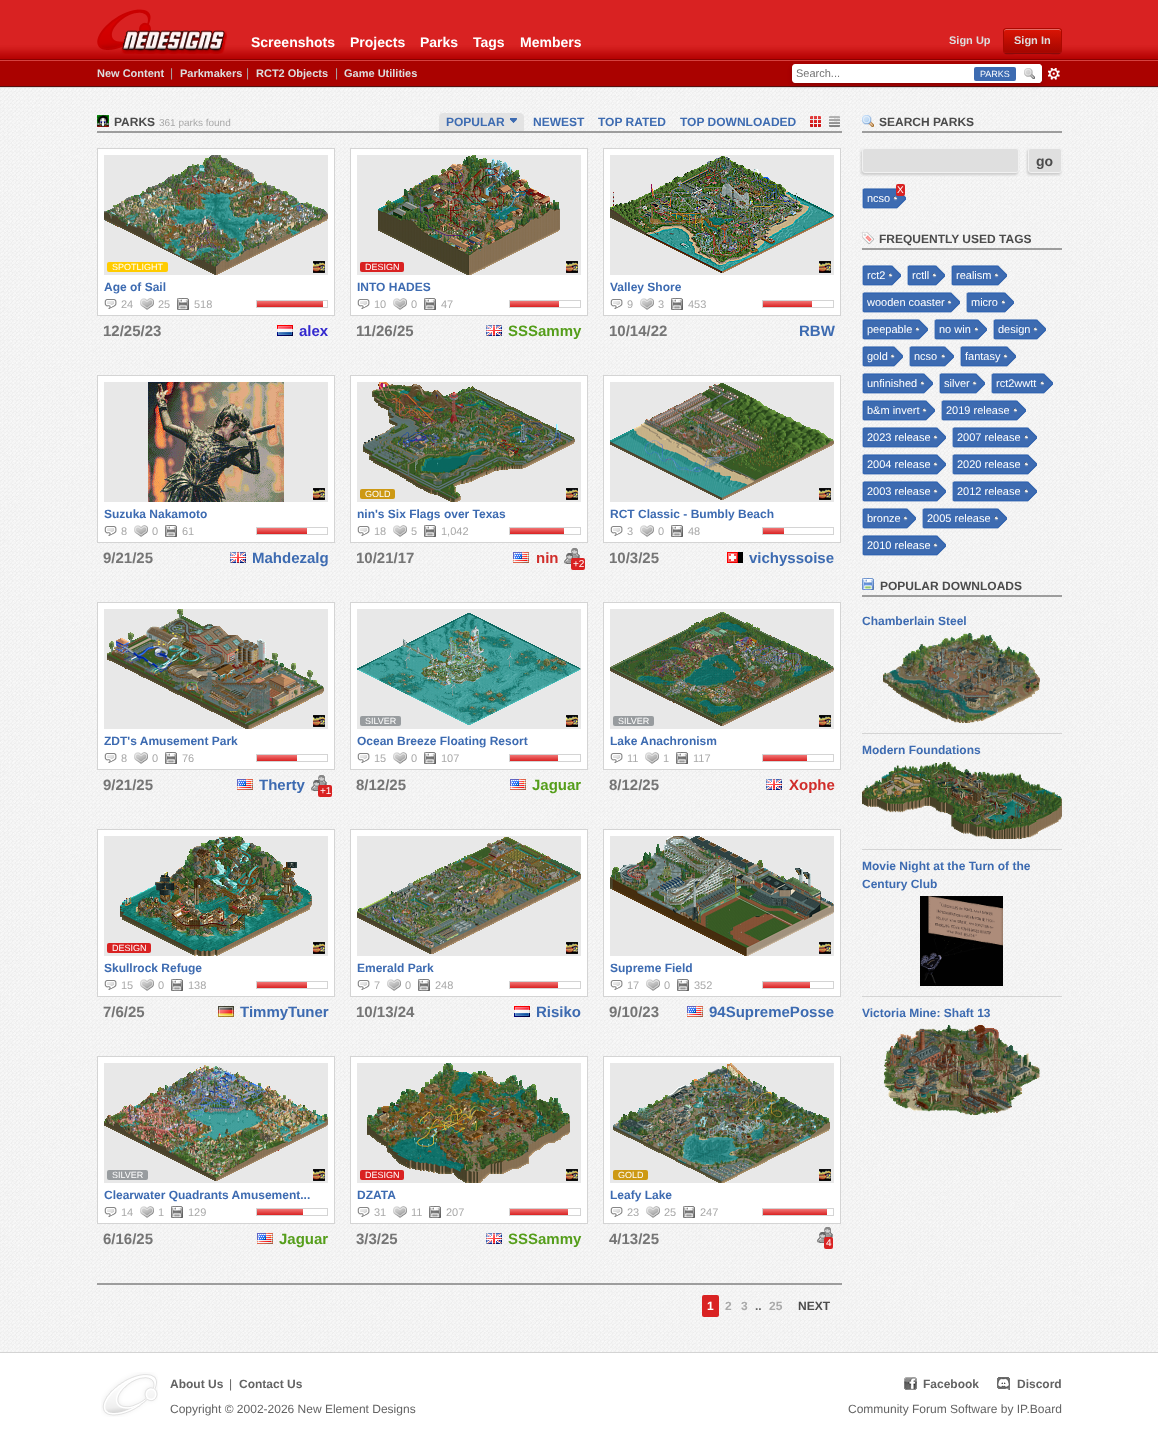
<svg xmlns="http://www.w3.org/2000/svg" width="1158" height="1435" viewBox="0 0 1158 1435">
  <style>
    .t1 { font: bold 14px Liberation Sans; fill: #fff; }
    .t2 { font: bold 11px Liberation Sans; fill: #ddd; }
    .t3 { font: 12px Liberation Sans; fill: #a9a9a9; }
    .t4 { font: 11px Liberation Sans; fill: #757575; }
    .t5 { font: 9px Liberation Sans; fill: #fff; }
    .t6 { font: bold 12px Liberation Sans; fill: #4b4b4b; }
    .t7 { font: 10px Liberation Sans; fill: #a9a9a9; }
    .t8 { font: bold 12px Liberation Sans; fill: #3d6bb1; }
    .t9 { font: 11px Liberation Sans; fill: #a9a9a9; }
    .t10 { font: bold 15px Liberation Sans; fill: #757575; }
    .t11 { font: bold 15px Liberation Sans; fill: #3328ce; }
    .t12 { font: bold 15px Liberation Sans; fill: #559e1b; }
    .t13 { font: bold 15px Liberation Sans; fill: #3d6bb1; }
    .t14 { font: bold 15px Liberation Sans; fill: #d02d2a; }
    .t15 { font: 10px Liberation Sans; fill: #fff; }
    .t16 { font: bold 12px Liberation Sans; fill: #fff; }
    .t17 { font: bold 12px Liberation Sans; fill: #a9a9a9; }
    .t18 { font: bold 12px Liberation Sans; fill: #636363; }
    .t19 { font: bold 14px Liberation Sans; fill: #4b4b4b; }
    .t20 { font: 11px Liberation Sans; fill: #fff; }
    .t21 { font: 12px Liberation Sans; fill: #636363; }
  </style>
  <defs>
    <clipPath id="clip1"><rect x="1003" y="28" width="59" height="25" rx="3"/></clipPath>
    <linearGradient id="g1" gradientUnits="userSpaceOnUse" x1="1004" y1="29" x2="1004" y2="52"><stop offset="0" stop-color="#db1505"/><stop offset="1" stop-color="#a50600"/></linearGradient>
    <linearGradient id="g2" gradientUnits="userSpaceOnUse" x1="257" y1="301" x2="257" y2="307"><stop offset="0" stop-color="#f17575"/><stop offset="1" stop-color="#d92222"/></linearGradient>
    <linearGradient id="g3" gradientUnits="userSpaceOnUse" x1="510" y1="301" x2="510" y2="307"><stop offset="0" stop-color="#f17575"/><stop offset="1" stop-color="#d92222"/></linearGradient>
    <linearGradient id="g4" gradientUnits="userSpaceOnUse" x1="763" y1="301" x2="763" y2="307"><stop offset="0" stop-color="#f17575"/><stop offset="1" stop-color="#d92222"/></linearGradient>
    <linearGradient id="g5" gradientUnits="userSpaceOnUse" x1="257" y1="528" x2="257" y2="534"><stop offset="0" stop-color="#f17575"/><stop offset="1" stop-color="#d92222"/></linearGradient>
    <linearGradient id="g6" gradientUnits="userSpaceOnUse" x1="510" y1="528" x2="510" y2="534"><stop offset="0" stop-color="#f17575"/><stop offset="1" stop-color="#d92222"/></linearGradient>
    <linearGradient id="g7" gradientUnits="userSpaceOnUse" x1="763" y1="528" x2="763" y2="534"><stop offset="0" stop-color="#f17575"/><stop offset="1" stop-color="#d92222"/></linearGradient>
    <linearGradient id="g8" gradientUnits="userSpaceOnUse" x1="257" y1="755" x2="257" y2="761"><stop offset="0" stop-color="#f17575"/><stop offset="1" stop-color="#d92222"/></linearGradient>
    <linearGradient id="g9" gradientUnits="userSpaceOnUse" x1="510" y1="755" x2="510" y2="761"><stop offset="0" stop-color="#f17575"/><stop offset="1" stop-color="#d92222"/></linearGradient>
    <linearGradient id="g10" gradientUnits="userSpaceOnUse" x1="763" y1="755" x2="763" y2="761"><stop offset="0" stop-color="#f17575"/><stop offset="1" stop-color="#d92222"/></linearGradient>
    <linearGradient id="g11" gradientUnits="userSpaceOnUse" x1="257" y1="982" x2="257" y2="988"><stop offset="0" stop-color="#f17575"/><stop offset="1" stop-color="#d92222"/></linearGradient>
    <linearGradient id="g12" gradientUnits="userSpaceOnUse" x1="510" y1="982" x2="510" y2="988"><stop offset="0" stop-color="#f17575"/><stop offset="1" stop-color="#d92222"/></linearGradient>
    <linearGradient id="g13" gradientUnits="userSpaceOnUse" x1="763" y1="982" x2="763" y2="988"><stop offset="0" stop-color="#f17575"/><stop offset="1" stop-color="#d92222"/></linearGradient>
    <linearGradient id="g14" gradientUnits="userSpaceOnUse" x1="257" y1="1209" x2="257" y2="1215"><stop offset="0" stop-color="#f17575"/><stop offset="1" stop-color="#d92222"/></linearGradient>
    <linearGradient id="g15" gradientUnits="userSpaceOnUse" x1="510" y1="1209" x2="510" y2="1215"><stop offset="0" stop-color="#f17575"/><stop offset="1" stop-color="#d92222"/></linearGradient>
    <linearGradient id="g16" gradientUnits="userSpaceOnUse" x1="763" y1="1209" x2="763" y2="1215"><stop offset="0" stop-color="#f17575"/><stop offset="1" stop-color="#d92222"/></linearGradient>
  </defs>
  <rect width="100%" height="100%" fill="#fff"/>
  <image x="0" y="0" width="1158" height="59" href="images/1.png"/>
  <rect x="0" y="59" width="1158" height="1" fill="#8a0000"/>
  <image x="97" y="9" width="130" height="45" href="images/2.png"/>
  <text x="251" y="47" class="t1">Screenshots</text>
  <text x="350" y="47" class="t1">Projects</text>
  <text x="420" y="47" class="t1">Parks</text>
  <text x="473" y="47" class="t1">Tags</text>
  <text x="520" y="47" class="t1">Members</text>
  <text x="949" y="44" class="t2">Sign Up</text>
  <path d="M1003 50C1003 56 1010 54 1015 54H1050C1055 54 1062 56 1062 50C1062 52 1061 53 1059 53H1006C1004 53 1003 52 1003 50Z" fill="#880a0a"/>
  <g clip-path="url(#clip1)">
    <rect x="1003" y="29" width="59" height="23" fill="url(#g1)"/>
  </g>
  <path d="M1006 30H1059C1060 30 1061 31 1061 32C1061 27 1054 29 1050 29H1015C1011 29 1004 27 1004 32C1004 31 1005 30 1006 30Z" fill="#e56b65"/>
  <rect x="1003.5" y="28.5" width="58" height="24" rx="2.5" fill="none" stroke="#ab0800"/>
  <text x="1014" y="44" class="t2">Sign In</text>
  <rect x="0" y="61" width="1158" height="25" fill="#aa0200"/>
  <rect x="0" y="60" width="1158" height="1" fill="#d54240"/>
  <rect x="0" y="86" width="1158" height="1" fill="#580f0e"/>
  <text x="97" y="77" class="t2">New Content</text>
  <text x="170" y="77" class="t3">|</text>
  <text x="180" y="77" class="t2">Parkmakers</text>
  <text x="246" y="77" class="t3">|</text>
  <text x="256" y="77" class="t2">RCT2 Objects</text>
  <text x="335" y="77" class="t3">|</text>
  <text x="344" y="77" class="t2">Game Utilities</text>
  <image x="1048" y="68" width="12" height="12" href="images/4.png"/>
  <image x="0" y="88" width="1158" height="1264" href="images/5.png"/>
  <rect x="0" y="87" width="1158" height="1" fill="#d9d9d9"/>
  <rect x="792" y="66" width="250" height="19" rx="4" fill="#00000033" filter="blur(2px)"/>
  <path d="M795 64H1038C1040 64 1042 66 1042 68V79C1042 81 1040 83 1038 83H795C793.5 83 792 81.5 792 80V67C792 65.5 793.5 64 795 64Z" fill="#fff"/>
  <text x="796" y="77" class="t4">Search...</text>
  <rect x="974" y="67" width="42" height="14" rx="2" fill="#3d6bb1"/>
  <text x="980" y="77" class="t5">PARKS</text>
  <path d="M1017 64H1039C1040.5 64 1042 65.5 1042 67V80C1042 81.5 1040.5 83 1039 83H1017Z" fill="#fff"/>
  <image x="1024" y="68" width="11" height="11" href="images/3.png"/>
  <path d="M1017 65H1035C1040 65 1041.5 65.5 1042 67C1042 65.5 1040.5 64 1039 64H1017Z" fill="#ffffff33"/>
  <rect x="97" y="131" width="745" height="2" fill="#9d9d9d"/>
  <image x="97" y="115" width="12" height="12" href="images/6.png"/>
  <text x="114" y="126" class="t6">PARKS</text>
  <text x="159" y="126" class="t7">361 parks found</text>
  <path d="M443 113H520C522 113 524 115 524 117V131H439V117C439 115 441 113 443 113Z" fill="#e3e3e3"/>
  <text x="446" y="126" class="t8">POPULAR</text>
  <image x="510" y="118" width="7" height="5" href="images/7.png"/>
  <text x="533" y="126" class="t8">NEWEST</text>
  <text x="598" y="126" class="t8">TOP RATED</text>
  <text x="680" y="126" class="t8">TOP DOWNLOADED</text>
  <image x="810" y="116" width="11" height="11" href="images/8.png"/>
  <image x="829" y="116" width="11" height="11" href="images/9.png"/>
  <rect x="97.5" y="148.5" width="237" height="167" fill="#fff" stroke="#d4d4d4"/>
  <rect x="104" y="155" width="224" height="120" fill="#e8e8e8"/>
  <image x="104" y="155" width="224" height="120" href="images/10.png"/>
  <rect x="107" y="262" width="61" height="10" rx="2" fill="#fc0"/>
  <text x="112" y="270" class="t5">SPOTLIGHT</text>
  <image x="313" y="261" width="12" height="12" href="images/11.png"/>
  <text x="104" y="291" class="t8">Age of Sail</text>
  <image x="104" y="299" width="13" height="10" href="images/12.png"/>
  <text x="121" y="308" class="t9">24</text>
  <image x="140" y="298" width="14" height="12" href="images/13.png"/>
  <text x="158" y="308" class="t9">25</text>
  <image x="177" y="298" width="12" height="12" href="images/14.png"/>
  <text x="194" y="308" class="t9">518</text>
  <rect x="256.5" y="300.5" width="71" height="7" fill="none" stroke="#d4d4d4"/>
  <rect x="257" y="301" width="66" height="6" fill="url(#g2)"/>
  <text x="103" y="336" class="t10">12/25/23</text>
  <image x="277" y="325" width="16" height="11" href="images/15.png"/>
  <text x="299" y="336" class="t11">alex</text>
  <rect x="350.5" y="148.5" width="237" height="167" fill="#fff" stroke="#d4d4d4"/>
  <rect x="357" y="155" width="224" height="120" fill="#e8e8e8"/>
  <image x="378" y="155" width="182" height="120" href="images/16.png"/>
  <rect x="360" y="262" width="44" height="10" rx="2" fill="#d92222"/>
  <text x="365" y="270" class="t5">DESIGN</text>
  <image x="566" y="261" width="12" height="12" href="images/11.png"/>
  <text x="357" y="291" class="t8">INTO HADES</text>
  <image x="357" y="299" width="13" height="10" href="images/12.png"/>
  <text x="374" y="308" class="t9">10</text>
  <image x="393" y="298" width="14" height="12" href="images/13.png"/>
  <text x="411" y="308" class="t9">0</text>
  <image x="424" y="298" width="12" height="12" href="images/14.png"/>
  <text x="441" y="308" class="t9">47</text>
  <rect x="509.5" y="300.5" width="71" height="7" fill="none" stroke="#d4d4d4"/>
  <rect x="510" y="301" width="49" height="6" fill="url(#g3)"/>
  <text x="356" y="336" class="t10">11/26/25</text>
  <image x="486" y="325" width="16" height="11" href="images/17.png"/>
  <text x="508" y="336" class="t12">SSSammy</text>
  <rect x="603.5" y="148.5" width="237" height="167" fill="#fff" stroke="#d4d4d4"/>
  <rect x="610" y="155" width="224" height="120" fill="#e8e8e8"/>
  <image x="610" y="156" width="224" height="117" href="images/18.png"/>
  <image x="819" y="261" width="12" height="12" href="images/11.png"/>
  <text x="610" y="291" class="t8">Valley Shore</text>
  <image x="610" y="299" width="13" height="10" href="images/12.png"/>
  <text x="627" y="308" class="t9">9</text>
  <image x="640" y="298" width="14" height="12" href="images/13.png"/>
  <text x="658" y="308" class="t9">3</text>
  <image x="671" y="298" width="12" height="12" href="images/14.png"/>
  <text x="688" y="308" class="t9">453</text>
  <rect x="762.5" y="300.5" width="71" height="7" fill="none" stroke="#d4d4d4"/>
  <rect x="763" y="301" width="49" height="6" fill="url(#g4)"/>
  <text x="609" y="336" class="t10">10/14/22</text>
  <text x="799" y="336" class="t13">RBW</text>
  <rect x="97.5" y="375.5" width="237" height="167" fill="#fff" stroke="#d4d4d4"/>
  <rect x="104" y="382" width="224" height="120" fill="#e8e8e8"/>
  <image x="148" y="382" width="136" height="120" href="images/19.png"/>
  <image x="313" y="488" width="12" height="12" href="images/11.png"/>
  <text x="104" y="518" class="t8">Suzuka Nakamoto</text>
  <image x="104" y="526" width="13" height="10" href="images/12.png"/>
  <text x="121" y="535" class="t9">8</text>
  <image x="134" y="525" width="14" height="12" href="images/13.png"/>
  <text x="152" y="535" class="t9">0</text>
  <image x="165" y="525" width="12" height="12" href="images/14.png"/>
  <text x="182" y="535" class="t9">61</text>
  <rect x="256.5" y="527.5" width="71" height="7" fill="none" stroke="#d4d4d4"/>
  <rect x="257" y="528" width="50" height="6" fill="url(#g5)"/>
  <text x="103" y="563" class="t10">9/21/25</text>
  <image x="230" y="552" width="16" height="11" href="images/17.png"/>
  <text x="252" y="563" class="t13">Mahdezalg</text>
  <rect x="350.5" y="375.5" width="237" height="167" fill="#fff" stroke="#d4d4d4"/>
  <rect x="357" y="382" width="224" height="120" fill="#e8e8e8"/>
  <image x="363" y="382" width="212" height="120" href="images/20.png"/>
  <rect x="360" y="489" width="35" height="10" rx="2" fill="#cd9914"/>
  <text x="365" y="497" class="t5">GOLD</text>
  <image x="566" y="488" width="12" height="12" href="images/11.png"/>
  <text x="357" y="518" class="t8">nin's Six Flags over Texas</text>
  <image x="357" y="526" width="13" height="10" href="images/12.png"/>
  <text x="374" y="535" class="t9">18</text>
  <image x="393" y="525" width="14" height="12" href="images/13.png"/>
  <text x="411" y="535" class="t9">5</text>
  <image x="424" y="525" width="12" height="12" href="images/14.png"/>
  <text x="441" y="535" class="t9">1,042</text>
  <rect x="509.5" y="527.5" width="71" height="7" fill="none" stroke="#d4d4d4"/>
  <rect x="510" y="528" width="54" height="6" fill="url(#g6)"/>
  <text x="356" y="563" class="t10">10/21/17</text>
  <image x="513" y="552" width="16" height="11" href="images/21.png"/>
  <text x="536" y="563" class="t14">nin</text>
  <image x="564" y="548" width="16" height="16" href="images/22.png"/>
  <rect x="571" y="558" width="14" height="12" rx="2" fill="#d92222"/>
  <text x="573" y="567" class="t15">+2</text>
  <rect x="603.5" y="375.5" width="237" height="167" fill="#fff" stroke="#d4d4d4"/>
  <rect x="610" y="382" width="224" height="120" fill="#e8e8e8"/>
  <image x="610" y="383" width="224" height="117" href="images/23.png"/>
  <image x="819" y="488" width="12" height="12" href="images/11.png"/>
  <text x="610" y="518" class="t8">RCT Classic - Bumbly Beach</text>
  <image x="610" y="526" width="13" height="10" href="images/12.png"/>
  <text x="627" y="535" class="t9">3</text>
  <image x="640" y="525" width="14" height="12" href="images/13.png"/>
  <text x="658" y="535" class="t9">0</text>
  <image x="671" y="525" width="12" height="12" href="images/14.png"/>
  <text x="688" y="535" class="t9">48</text>
  <rect x="762.5" y="527.5" width="71" height="7" fill="none" stroke="#d4d4d4"/>
  <rect x="763" y="528" width="21" height="6" fill="url(#g7)"/>
  <text x="609" y="563" class="t10">10/3/25</text>
  <image x="727" y="552" width="16" height="11" href="images/24.png"/>
  <text x="749" y="563" class="t13">vichyssoise</text>
  <rect x="97.5" y="602.5" width="237" height="167" fill="#fff" stroke="#d4d4d4"/>
  <rect x="104" y="609" width="224" height="120" fill="#e8e8e8"/>
  <image x="107" y="609" width="217" height="120" href="images/25.png"/>
  <image x="313" y="715" width="12" height="12" href="images/11.png"/>
  <text x="104" y="745" class="t8">ZDT's Amusement Park</text>
  <image x="104" y="753" width="13" height="10" href="images/12.png"/>
  <text x="121" y="762" class="t9">8</text>
  <image x="134" y="752" width="14" height="12" href="images/13.png"/>
  <text x="152" y="762" class="t9">0</text>
  <image x="165" y="752" width="12" height="12" href="images/14.png"/>
  <text x="182" y="762" class="t9">76</text>
  <rect x="256.5" y="754.5" width="71" height="7" fill="none" stroke="#d4d4d4"/>
  <rect x="257" y="755" width="40" height="6" fill="url(#g8)"/>
  <text x="103" y="790" class="t10">9/21/25</text>
  <image x="237" y="779" width="16" height="11" href="images/21.png"/>
  <text x="259" y="790" class="t13">Therty</text>
  <image x="311" y="775" width="16" height="16" href="images/26.png"/>
  <rect x="318" y="785" width="14" height="12" rx="2" fill="#d92222"/>
  <text x="320" y="794" class="t15">+1</text>
  <rect x="350.5" y="602.5" width="237" height="167" fill="#fff" stroke="#d4d4d4"/>
  <rect x="357" y="609" width="224" height="120" fill="#e8e8e8"/>
  <image x="357" y="613" width="224" height="112" href="images/27.png"/>
  <rect x="360" y="716" width="41" height="10" rx="2" fill="#989c9f"/>
  <text x="365" y="724" class="t5">SILVER</text>
  <image x="566" y="715" width="12" height="12" href="images/11.png"/>
  <text x="357" y="745" class="t8">Ocean Breeze Floating Resort</text>
  <image x="357" y="753" width="13" height="10" href="images/12.png"/>
  <text x="374" y="762" class="t9">15</text>
  <image x="393" y="752" width="14" height="12" href="images/13.png"/>
  <text x="411" y="762" class="t9">0</text>
  <image x="424" y="752" width="12" height="12" href="images/14.png"/>
  <text x="441" y="762" class="t9">107</text>
  <rect x="509.5" y="754.5" width="71" height="7" fill="none" stroke="#d4d4d4"/>
  <rect x="510" y="755" width="48" height="6" fill="url(#g9)"/>
  <text x="356" y="790" class="t10">8/12/25</text>
  <image x="510" y="779" width="16" height="11" href="images/21.png"/>
  <text x="532" y="790" class="t12">Jaguar</text>
  <rect x="603.5" y="602.5" width="237" height="167" fill="#fff" stroke="#d4d4d4"/>
  <rect x="610" y="609" width="224" height="120" fill="#e8e8e8"/>
  <image x="610" y="612" width="224" height="114" href="images/28.png"/>
  <rect x="613" y="716" width="41" height="10" rx="2" fill="#989c9f"/>
  <text x="618" y="724" class="t5">SILVER</text>
  <image x="819" y="715" width="12" height="12" href="images/11.png"/>
  <text x="610" y="745" class="t8">Lake Anachronism</text>
  <image x="610" y="753" width="13" height="10" href="images/12.png"/>
  <text x="627" y="762" class="t9">11</text>
  <image x="645" y="752" width="14" height="12" href="images/13.png"/>
  <text x="663" y="762" class="t9">1</text>
  <image x="676" y="752" width="12" height="12" href="images/14.png"/>
  <text x="693" y="762" class="t9">117</text>
  <rect x="762.5" y="754.5" width="71" height="7" fill="none" stroke="#d4d4d4"/>
  <rect x="763" y="755" width="44" height="6" fill="url(#g10)"/>
  <text x="609" y="790" class="t10">8/12/25</text>
  <image x="766" y="779" width="16" height="11" href="images/17.png"/>
  <text x="789" y="790" class="t14">Xophe</text>
  <rect x="97.5" y="829.5" width="237" height="167" fill="#fff" stroke="#d4d4d4"/>
  <rect x="104" y="836" width="224" height="120" fill="#e8e8e8"/>
  <image x="120" y="836" width="192" height="120" href="images/29.png"/>
  <rect x="107" y="943" width="44" height="10" rx="2" fill="#d92222"/>
  <text x="112" y="951" class="t5">DESIGN</text>
  <image x="313" y="942" width="12" height="12" href="images/11.png"/>
  <text x="104" y="972" class="t8">Skullrock Refuge</text>
  <image x="104" y="980" width="13" height="10" href="images/12.png"/>
  <text x="121" y="989" class="t9">15</text>
  <image x="140" y="979" width="14" height="12" href="images/13.png"/>
  <text x="158" y="989" class="t9">0</text>
  <image x="171" y="979" width="12" height="12" href="images/14.png"/>
  <text x="188" y="989" class="t9">138</text>
  <rect x="256.5" y="981.5" width="71" height="7" fill="none" stroke="#d4d4d4"/>
  <rect x="257" y="982" width="50" height="6" fill="url(#g11)"/>
  <text x="103" y="1017" class="t10">7/6/25</text>
  <image x="218" y="1006" width="16" height="11" href="images/30.png"/>
  <text x="240" y="1017" class="t13">TimmyTuner</text>
  <rect x="350.5" y="829.5" width="237" height="167" fill="#fff" stroke="#d4d4d4"/>
  <rect x="357" y="836" width="224" height="120" fill="#e8e8e8"/>
  <image x="357" y="837" width="224" height="117" href="images/31.png"/>
  <image x="566" y="942" width="12" height="12" href="images/11.png"/>
  <text x="357" y="972" class="t8">Emerald Park</text>
  <image x="357" y="980" width="13" height="10" href="images/12.png"/>
  <text x="374" y="989" class="t9">7</text>
  <image x="387" y="979" width="14" height="12" href="images/13.png"/>
  <text x="405" y="989" class="t9">0</text>
  <image x="418" y="979" width="12" height="12" href="images/14.png"/>
  <text x="435" y="989" class="t9">248</text>
  <rect x="509.5" y="981.5" width="71" height="7" fill="none" stroke="#d4d4d4"/>
  <rect x="510" y="982" width="48" height="6" fill="url(#g12)"/>
  <text x="356" y="1017" class="t10">10/13/24</text>
  <image x="514" y="1006" width="16" height="11" href="images/15.png"/>
  <text x="536" y="1017" class="t13">Risiko</text>
  <rect x="603.5" y="829.5" width="237" height="167" fill="#fff" stroke="#d4d4d4"/>
  <rect x="610" y="836" width="224" height="120" fill="#e8e8e8"/>
  <image x="610" y="836" width="224" height="120" href="images/32.png"/>
  <image x="819" y="942" width="12" height="12" href="images/11.png"/>
  <text x="610" y="972" class="t8">Supreme Field</text>
  <image x="610" y="980" width="13" height="10" href="images/12.png"/>
  <text x="627" y="989" class="t9">17</text>
  <image x="646" y="979" width="14" height="12" href="images/13.png"/>
  <text x="664" y="989" class="t9">0</text>
  <image x="677" y="979" width="12" height="12" href="images/14.png"/>
  <text x="694" y="989" class="t9">352</text>
  <rect x="762.5" y="981.5" width="71" height="7" fill="none" stroke="#d4d4d4"/>
  <rect x="763" y="982" width="47" height="6" fill="url(#g13)"/>
  <text x="609" y="1017" class="t10">9/10/23</text>
  <image x="687" y="1006" width="16" height="11" href="images/21.png"/>
  <text x="709" y="1017" class="t13">94SupremePosse</text>
  <rect x="97.5" y="1056.5" width="237" height="167" fill="#fff" stroke="#d4d4d4"/>
  <rect x="104" y="1063" width="224" height="120" fill="#e8e8e8"/>
  <image x="104" y="1065" width="224" height="116" href="images/33.png"/>
  <rect x="107" y="1170" width="41" height="10" rx="2" fill="#989c9f"/>
  <text x="112" y="1178" class="t5">SILVER</text>
  <image x="313" y="1169" width="12" height="12" href="images/11.png"/>
  <text x="104" y="1199" class="t8">Clearwater Quadrants Amusement...</text>
  <image x="104" y="1207" width="13" height="10" href="images/12.png"/>
  <text x="121" y="1216" class="t9">14</text>
  <image x="140" y="1206" width="14" height="12" href="images/13.png"/>
  <text x="158" y="1216" class="t9">1</text>
  <image x="171" y="1206" width="12" height="12" href="images/14.png"/>
  <text x="188" y="1216" class="t9">129</text>
  <rect x="256.5" y="1208.5" width="71" height="7" fill="none" stroke="#d4d4d4"/>
  <rect x="257" y="1209" width="46" height="6" fill="url(#g14)"/>
  <text x="103" y="1244" class="t10">6/16/25</text>
  <image x="257" y="1233" width="16" height="11" href="images/21.png"/>
  <text x="279" y="1244" class="t12">Jaguar</text>
  <rect x="350.5" y="1056.5" width="237" height="167" fill="#fff" stroke="#d4d4d4"/>
  <rect x="357" y="1063" width="224" height="120" fill="#e8e8e8"/>
  <image x="367" y="1063" width="203" height="120" href="images/34.png"/>
  <rect x="360" y="1170" width="44" height="10" rx="2" fill="#d92222"/>
  <text x="365" y="1178" class="t5">DESIGN</text>
  <image x="566" y="1169" width="12" height="12" href="images/11.png"/>
  <text x="357" y="1199" class="t8">DZATA</text>
  <image x="357" y="1207" width="13" height="10" href="images/12.png"/>
  <text x="374" y="1216" class="t9">31</text>
  <image x="393" y="1206" width="14" height="12" href="images/13.png"/>
  <text x="411" y="1216" class="t9">11</text>
  <image x="429" y="1206" width="12" height="12" href="images/14.png"/>
  <text x="446" y="1216" class="t9">207</text>
  <rect x="509.5" y="1208.5" width="71" height="7" fill="none" stroke="#d4d4d4"/>
  <rect x="510" y="1209" width="58" height="6" fill="url(#g15)"/>
  <text x="356" y="1244" class="t10">3/3/25</text>
  <image x="486" y="1233" width="16" height="11" href="images/17.png"/>
  <text x="508" y="1244" class="t12">SSSammy</text>
  <rect x="603.5" y="1056.5" width="237" height="167" fill="#fff" stroke="#d4d4d4"/>
  <rect x="610" y="1063" width="224" height="120" fill="#e8e8e8"/>
  <image x="613" y="1063" width="217" height="120" href="images/35.png"/>
  <rect x="613" y="1170" width="35" height="10" rx="2" fill="#cd9914"/>
  <text x="618" y="1178" class="t5">GOLD</text>
  <image x="819" y="1169" width="12" height="12" href="images/11.png"/>
  <text x="610" y="1199" class="t8">Leafy Lake</text>
  <image x="610" y="1207" width="13" height="10" href="images/12.png"/>
  <text x="627" y="1216" class="t9">23</text>
  <image x="646" y="1206" width="14" height="12" href="images/13.png"/>
  <text x="664" y="1216" class="t9">25</text>
  <image x="683" y="1206" width="12" height="12" href="images/14.png"/>
  <text x="700" y="1216" class="t9">247</text>
  <rect x="762.5" y="1208.5" width="71" height="7" fill="none" stroke="#d4d4d4"/>
  <rect x="763" y="1209" width="64" height="6" fill="url(#g16)"/>
  <text x="609" y="1244" class="t10">4/13/25</text>
  <image x="817" y="1227" width="16" height="16" href="images/36.png"/>
  <rect x="824" y="1237" width="9" height="12" rx="2" fill="#d92222"/>
  <text x="826" y="1246" class="t15">4</text>
  <rect x="97" y="1283" width="745" height="2" fill="#9d9d9d"/>
  <rect x="702" y="1295" width="17" height="22" rx="2" fill="#d92222"/>
  <text x="707" y="1310" class="t16">1</text>
  <text x="725" y="1310" class="t17">2</text>
  <text x="741" y="1310" class="t17">3</text>
  <text x="755" y="1310" class="t18">..</text>
  <text x="769" y="1310" class="t17">25</text>
  <text x="798" y="1310" class="t6">NEXT</text>
  <rect x="862" y="131" width="200" height="2" fill="#9d9d9d"/>
  <image x="862" y="115" width="12" height="12" href="images/37.png"/>
  <text x="879" y="126" class="t6">SEARCH PARKS</text>
  <rect x="861" y="150" width="157" height="25" rx="3" fill="#ccc" filter="blur(1px)"/>
  <rect x="862.5" y="148.5" width="156" height="24" rx="2.5" fill="#dfdfdf" stroke="#f1f1f1"/>
  <rect x="1027" y="150" width="34" height="25" rx="3" fill="#ccc" filter="blur(1px)"/>
  <rect x="1028.5" y="148.5" width="33" height="24" rx="2.5" fill="#dfdfdf" stroke="#f1f1f1"/>
  <text x="1036" y="166" class="t19">go</text>
  <image x="864" y="188" width="42" height="21" href="images/39.png"/>
  <rect x="896" y="184" width="9" height="12" rx="2" fill="#d92222"/>
  <text x="897" y="193" class="t15">X</text>
  <image x="862" y="188" width="2" height="21" href="images/38.png"/>
  <text x="867" y="202" class="t20">ncso</text>
  <rect x="862" y="248" width="200" height="2" fill="#9d9d9d"/>
  <image x="862" y="232" width="12" height="12" href="images/40.png"/>
  <text x="879" y="243" class="t6">FREQUENTLY USED TAGS</text>
  <image x="862" y="265" width="2" height="21" href="images/38.png"/>
  <image x="864" y="265" width="37" height="21" href="images/41.png"/>
  <text x="867" y="279" class="t20">rct2</text>
  <image x="907" y="265" width="2" height="21" href="images/38.png"/>
  <image x="909" y="265" width="36" height="21" href="images/42.png"/>
  <text x="912" y="279" class="t20">rctll</text>
  <image x="951" y="265" width="2" height="21" href="images/38.png"/>
  <image x="953" y="265" width="54" height="21" href="images/43.png"/>
  <text x="956" y="279" class="t20">realism</text>
  <image x="862" y="292" width="2" height="21" href="images/38.png"/>
  <image x="864" y="292" width="96" height="21" href="images/44.png"/>
  <text x="867" y="306" class="t20">wooden coaster</text>
  <image x="966" y="292" width="2" height="21" href="images/45.png"/>
  <image x="968" y="292" width="46" height="21" href="images/46.png"/>
  <text x="971" y="306" class="t20">micro</text>
  <image x="862" y="319" width="2" height="21" href="images/38.png"/>
  <image x="864" y="319" width="64" height="21" href="images/47.png"/>
  <text x="867" y="333" class="t20">peepable</text>
  <image x="934" y="319" width="2" height="21" href="images/45.png"/>
  <image x="936" y="319" width="51" height="21" href="images/48.png"/>
  <text x="939" y="333" class="t20">no win</text>
  <image x="993" y="319" width="2" height="21" href="images/38.png"/>
  <image x="995" y="319" width="51" height="21" href="images/49.png"/>
  <text x="998" y="333" class="t20">design</text>
  <image x="862" y="346" width="2" height="21" href="images/38.png"/>
  <image x="864" y="346" width="39" height="21" href="images/50.png"/>
  <text x="867" y="360" class="t20">gold</text>
  <image x="909" y="346" width="2" height="21" href="images/45.png"/>
  <image x="911" y="346" width="43" height="21" href="images/51.png"/>
  <text x="914" y="360" class="t20">ncso</text>
  <image x="960" y="346" width="2" height="21" href="images/38.png"/>
  <image x="962" y="346" width="54" height="21" href="images/43.png"/>
  <text x="965" y="360" class="t20">fantasy</text>
  <image x="862" y="373" width="2" height="21" href="images/38.png"/>
  <image x="864" y="373" width="69" height="21" href="images/52.png"/>
  <text x="867" y="387" class="t20">unfinished</text>
  <image x="939" y="373" width="2" height="21" href="images/38.png"/>
  <image x="941" y="373" width="44" height="21" href="images/53.png"/>
  <text x="944" y="387" class="t20">silver</text>
  <image x="991" y="373" width="2" height="21" href="images/45.png"/>
  <image x="993" y="373" width="60" height="21" href="images/54.png"/>
  <text x="996" y="387" class="t20">rct2wwtt</text>
  <image x="862" y="400" width="2" height="21" href="images/38.png"/>
  <image x="864" y="400" width="71" height="21" href="images/55.png"/>
  <text x="867" y="414" class="t20">b&amp;m invert</text>
  <image x="941" y="400" width="2" height="21" href="images/45.png"/>
  <image x="943" y="400" width="83" height="21" href="images/56.png"/>
  <text x="946" y="414" class="t20">2019 release</text>
  <image x="862" y="427" width="2" height="21" href="images/38.png"/>
  <image x="864" y="427" width="82" height="21" href="images/57.png"/>
  <text x="867" y="441" class="t20">2023 release</text>
  <image x="952" y="427" width="2" height="21" href="images/45.png"/>
  <image x="954" y="427" width="83" height="21" href="images/56.png"/>
  <text x="957" y="441" class="t20">2007 release</text>
  <image x="862" y="454" width="2" height="21" href="images/38.png"/>
  <image x="864" y="454" width="82" height="21" href="images/57.png"/>
  <text x="867" y="468" class="t20">2004 release</text>
  <image x="952" y="454" width="2" height="21" href="images/45.png"/>
  <image x="954" y="454" width="83" height="21" href="images/56.png"/>
  <text x="957" y="468" class="t20">2020 release</text>
  <image x="862" y="481" width="2" height="21" href="images/38.png"/>
  <image x="864" y="481" width="82" height="21" href="images/57.png"/>
  <text x="867" y="495" class="t20">2003 release</text>
  <image x="952" y="481" width="2" height="21" href="images/45.png"/>
  <image x="954" y="481" width="83" height="21" href="images/56.png"/>
  <text x="957" y="495" class="t20">2012 release</text>
  <image x="862" y="508" width="2" height="21" href="images/38.png"/>
  <image x="864" y="508" width="52" height="21" href="images/58.png"/>
  <text x="867" y="522" class="t20">bronze</text>
  <image x="922" y="508" width="2" height="21" href="images/45.png"/>
  <image x="924" y="508" width="83" height="21" href="images/56.png"/>
  <text x="927" y="522" class="t20">2005 release</text>
  <image x="862" y="535" width="2" height="21" href="images/38.png"/>
  <image x="864" y="535" width="82" height="21" href="images/57.png"/>
  <text x="867" y="549" class="t20">2010 release</text>
  <rect x="862" y="595" width="200" height="2" fill="#9d9d9d"/>
  <image x="862" y="578" width="12" height="12" href="images/59.png"/>
  <text x="880" y="590" class="t6">POPULAR DOWNLOADS</text>
  <rect x="862" y="733" width="200" height="1" fill="#d4d4d4"/>
  <text x="862" y="625" class="t8">Chamberlain Steel</text>
  <image x="883" y="633" width="157" height="90" href="images/60.png"/>
  <rect x="862" y="849" width="200" height="1" fill="#d4d4d4"/>
  <text x="862" y="754" class="t8">Modern Foundations</text>
  <image x="862" y="762" width="200" height="77" href="images/61.png"/>
  <rect x="862" y="996" width="200" height="1" fill="#d4d4d4"/>
  <text x="862" y="870" class="t8">Movie Night at the Turn of the</text>
  <text x="862" y="888" class="t8">Century Club</text>
  <image x="920" y="896" width="83" height="90" href="images/62.png"/>
  <text x="862" y="1017" class="t8">Victoria Mine: Shaft 13</text>
  <image x="884" y="1025" width="156" height="90" href="images/63.png"/>
  <rect x="0" y="1352" width="1158" height="1" fill="#d4d4d4"/>
  <image x="101" y="1372" width="57" height="45" href="images/64.png"/>
  <text x="170" y="1388" class="t18">About Us</text>
  <text x="229" y="1388" class="t21">|</text>
  <text x="239" y="1388" class="t18">Contact Us</text>
  <image x="904" y="1377" width="13" height="13" href="images/65.png"/>
  <text x="923" y="1388" class="t18">Facebook</text>
  <image x="997" y="1377" width="13" height="13" href="images/66.png"/>
  <text x="1017" y="1388" class="t18">Discord</text>
  <text x="170" y="1413" class="t21">Copyright © 2002-2026 New Element Designs</text>
  <text x="848" y="1413" class="t21">Community Forum Software by IP.Board</text>
</svg>
